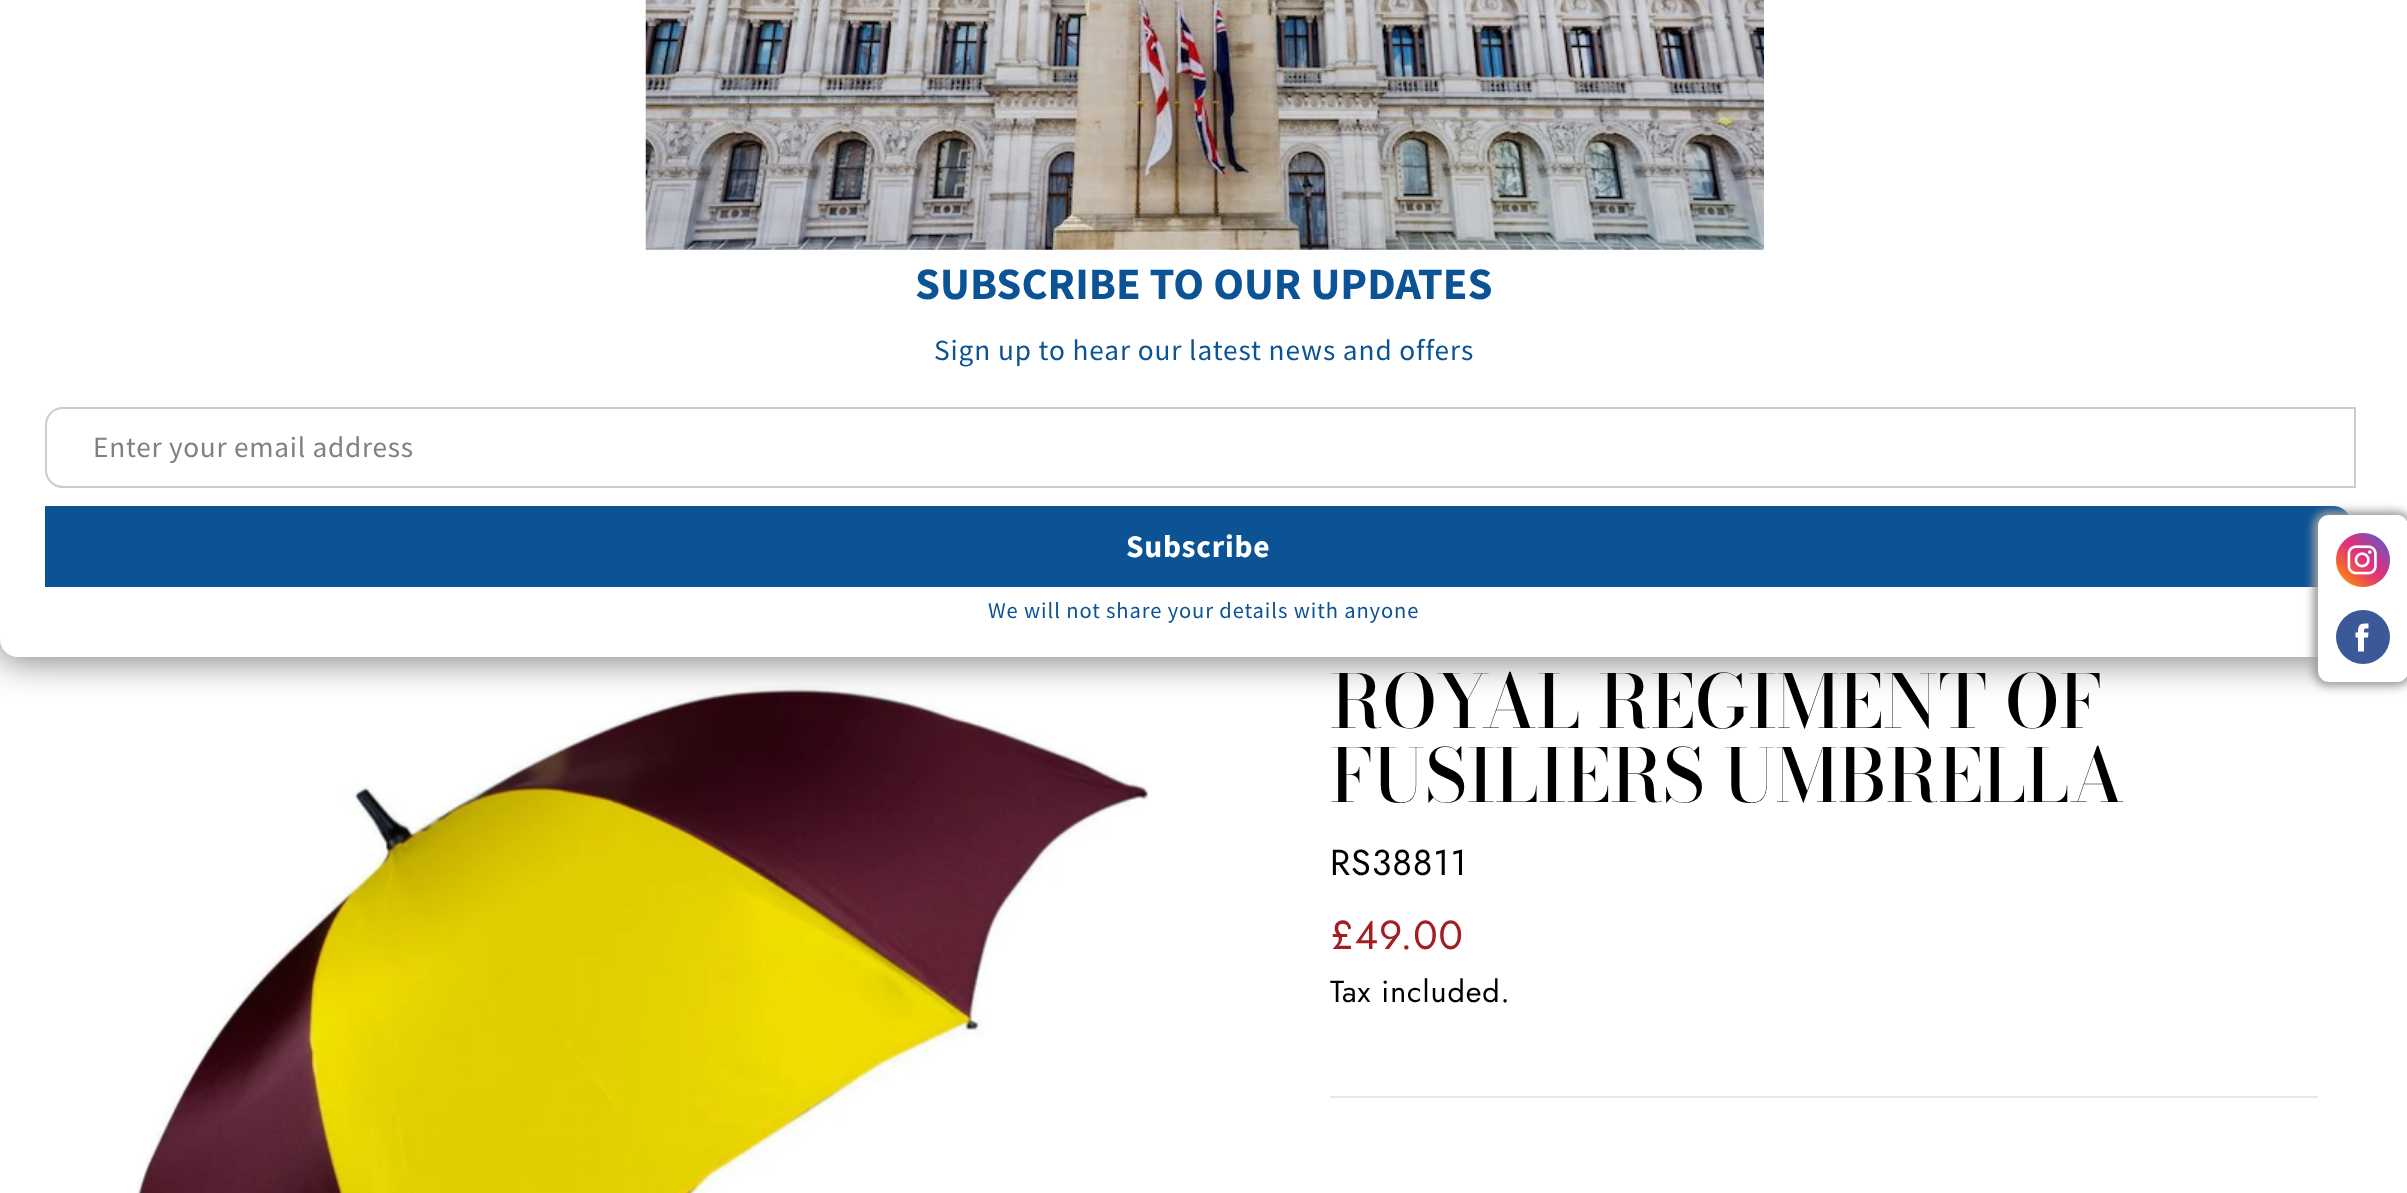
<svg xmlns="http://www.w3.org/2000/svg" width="2407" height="1193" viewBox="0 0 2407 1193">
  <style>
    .t1 { font: bold 45px Source Sans Pro; fill: #0b5394; }
    .t2 { font: 29.25px Source Sans Pro; letter-spacing: 0.9px; fill: #0b5394; }
    .t3 { font: 29.25px Source Sans Pro; letter-spacing: 0.75px; fill: #818181; }
    .t4 { font: bold 31.5px Source Sans Pro; letter-spacing: 0.75px; fill: #fff; }
    .t5 { font: 22.5px Source Sans Pro; letter-spacing: 0.9px; fill: #0b5394; }
    .t6 { font: 500 73.5px Bodoni Moda; fill: #000; }
    .t7 { font: 36px Jost; letter-spacing: 0.9px; fill: #000; }
    .t8 { font: 40.5px Jost; letter-spacing: 0.9px; fill: #a21e22; }
    .t9 { font: 30.5px Jost; letter-spacing: 0.9px; fill: #000; }
  </style>
  <rect width="100%" height="100%" fill="#fff"/>
  <image x="137" y="680" width="1012" height="513" href="images/3.png"/>
  <rect x="-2" y="-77" width="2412" height="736" rx="20" fill="#323232b0" filter="blur(19px)"/>
  <rect x="0" y="-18" width="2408" height="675" rx="18" fill="#fff"/>
  <image x="645" y="0" width="1119" height="250" href="images/1.png"/>
  <text x="915" y="299" class="t1">SUBSCRIBE TO OUR UPDATES</text>
  <text x="934" y="360" class="t2">Sign up to hear our latest news and offers</text>
  <path d="M63 408H2355V487H63C53.5 487 46 479.5 46 470V425C46 415.5 53.5 408 63 408Z" fill="none" stroke="#ccc" stroke-width="2"/>
  <text x="93" y="457" class="t3">Enter your email address</text>
  <path d="M45 506H2333C2343 506 2351 514 2351 524V569C2351 579 2343 587 2333 587H45Z" fill="#0b5394"/>
  <text x="1126" y="557" class="t4">Subscribe</text>
  <text x="988" y="618" class="t5">We will not share your details with anyone</text>
  <rect x="2313" y="511" width="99" height="175" rx="16" fill="#9e9e9e" filter="blur(4.5px)"/>
  <rect x="2318" y="515" width="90" height="167" rx="11" fill="#fff"/>
  <image x="2336" y="533" width="54" height="54" href="images/2.png"/>
  <circle cx="2363" cy="637" r="27" fill="#3b5998"/>
  <path d="M2368 637.5H2364V651.5H2358V637.5H2355.5V632.5H2358C2358 624 2360 623.5 2368.5 623.5V628.5C2364 628.5 2364 628 2364 632.5H2368.5Z" fill="#fff"/>
  <text x="1330" y="728" class="t6">ROYAL REGIMENT OF</text>
  <text x="1330" y="802" class="t6">FUSILIERS UMBRELLA</text>
  <text x="1330" y="875" class="t7">RS38811</text>
  <text x="1330" y="949" class="t8">£49.00</text>
  <text x="1330" y="1002" class="t9">Tax included.</text>
  <rect x="1330" y="1096" width="988" height="2" fill="#e8e8e1"/>
</svg>
